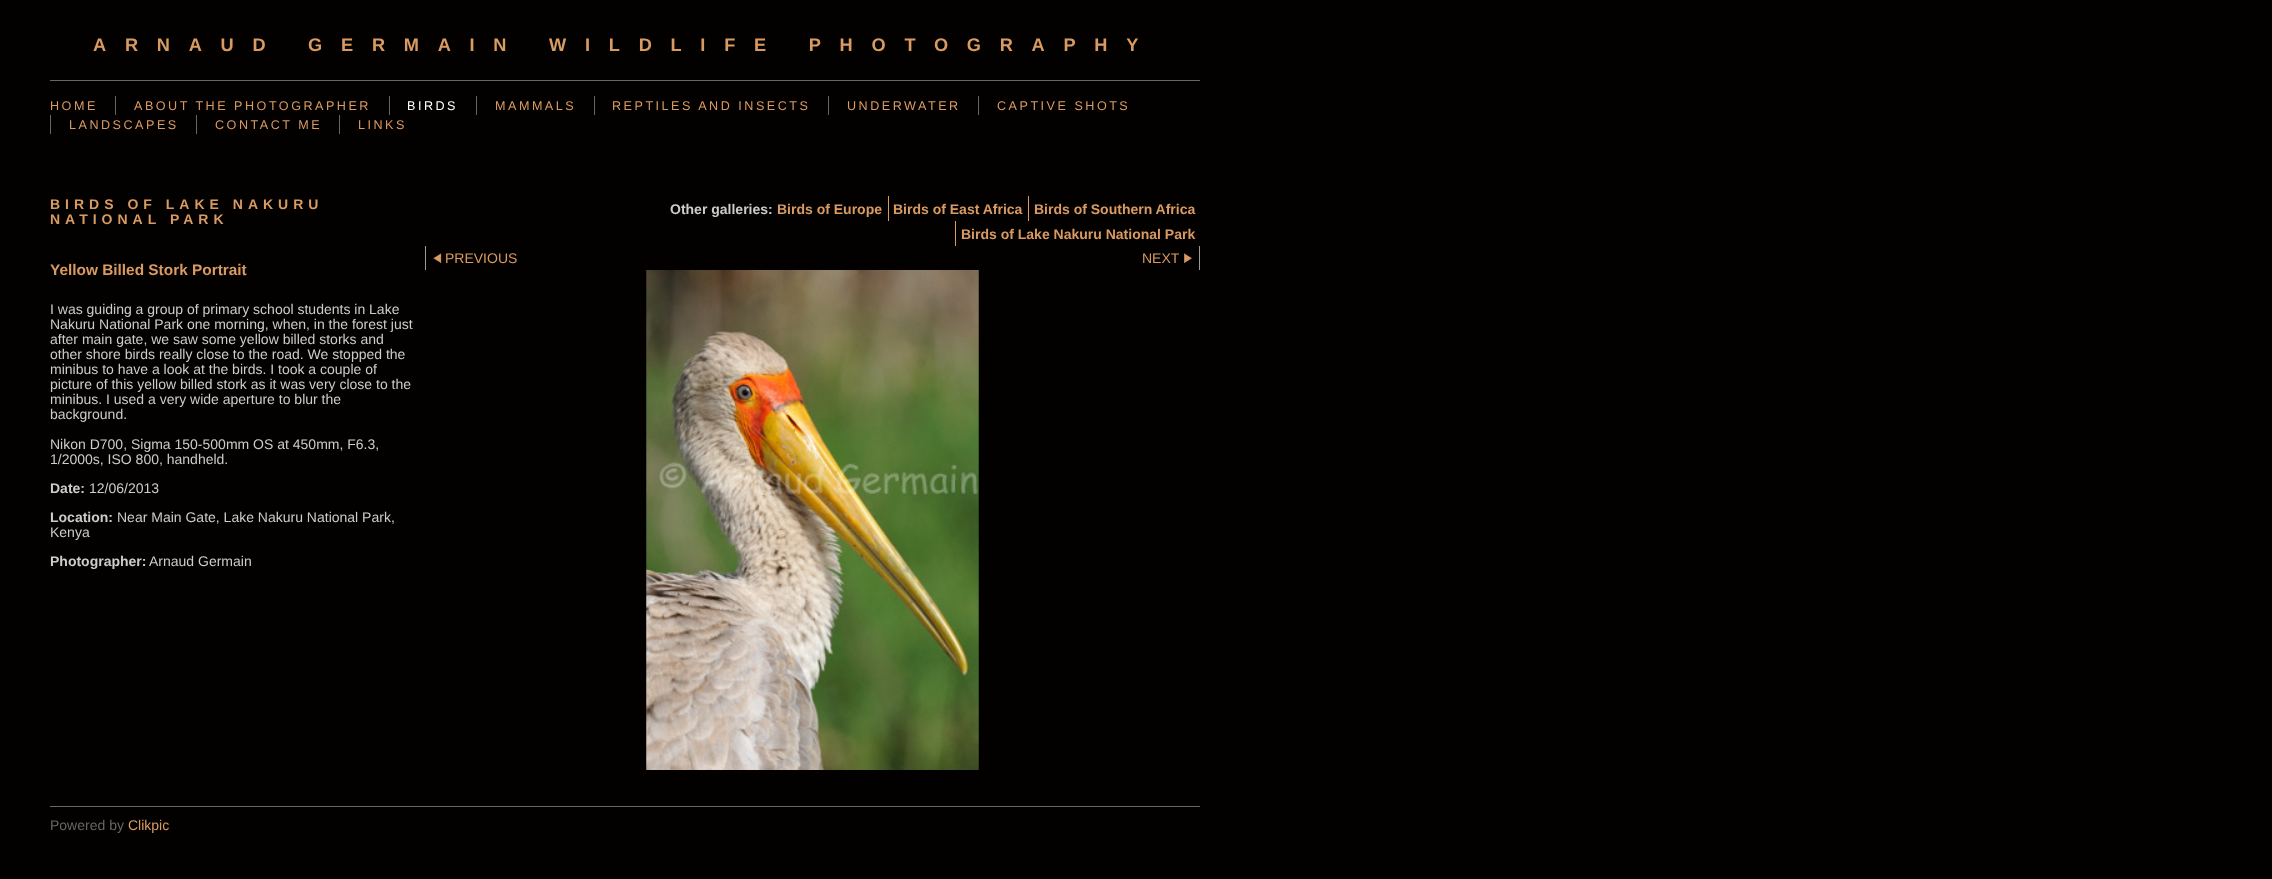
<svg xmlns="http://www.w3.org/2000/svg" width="2272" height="879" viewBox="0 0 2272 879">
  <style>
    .t1 { font: bold 18.2px Liberation Sans; letter-spacing: 18.75px; fill: #da9b62; }
    .t2 { font: 12.6px Liberation Sans; letter-spacing: 2.5px; fill: #da9b62; }
    .t3 { font: 12.6px Liberation Sans; letter-spacing: 2.5px; fill: #fff; }
    .t4 { font: bold 14px Liberation Sans; letter-spacing: 5px; fill: #da9b62; }
    .t5 { font: bold 15.4px Liberation Sans; fill: #da9b62; }
    .t6 { font: 14px Liberation Sans; fill: #ccc; }
    .t7 { font: bold 14px Liberation Sans; fill: #ccc; }
    .t8 { font: bold 14px Liberation Sans; fill: #da9b62; }
    .t9 { font: 14px Liberation Sans; fill: #da9b62; }
    .t10 { font: 14px Liberation Sans; fill: #666; }
  </style>
  <rect width="100%" height="100%" fill="#030000"/>
  <rect x="50" y="80" width="1150" height="1" fill="#666"/>
  <text x="93" y="51" class="t1">ARNAUD GERMAIN WILDLIFE PHOTOGRAPHY</text>
  <text x="50" y="110" class="t2">HOME</text>
  <rect x="115" y="96" width="1" height="19" fill="#666"/>
  <text x="134" y="110" class="t2">ABOUT THE PHOTOGRAPHER</text>
  <rect x="389" y="96" width="1" height="19" fill="#666"/>
  <text x="407" y="110" class="t3">BIRDS</text>
  <rect x="476" y="96" width="1" height="19" fill="#666"/>
  <text x="495" y="110" class="t2">MAMMALS</text>
  <rect x="594" y="96" width="1" height="19" fill="#666"/>
  <text x="612" y="110" class="t2">REPTILES AND INSECTS</text>
  <rect x="828" y="96" width="1" height="19" fill="#666"/>
  <text x="847" y="110" class="t2">UNDERWATER</text>
  <rect x="978" y="96" width="1" height="19" fill="#666"/>
  <text x="997" y="110" class="t2">CAPTIVE SHOTS</text>
  <rect x="50" y="115" width="1" height="19" fill="#666"/>
  <text x="69" y="129" class="t2">LANDSCAPES</text>
  <rect x="196" y="115" width="1" height="19" fill="#666"/>
  <text x="215" y="129" class="t2">CONTACT ME</text>
  <rect x="339" y="115" width="1" height="19" fill="#666"/>
  <text x="358" y="129" class="t2">LINKS</text>
  <text x="50" y="209" class="t4">BIRDS OF LAKE NAKURU</text>
  <text x="50" y="224" class="t4">NATIONAL PARK</text>
  <text x="50" y="275" class="t5">Yellow Billed Stork Portrait</text>
  <text x="50" y="314" class="t6">I was guiding a group of primary school students in Lake</text>
  <text x="50" y="329" class="t6">Nakuru National Park one morning, when, in the forest just</text>
  <text x="50" y="344" class="t6">after main gate, we saw some yellow billed storks and</text>
  <text x="50" y="359" class="t6">other shore birds really close to the road. We stopped the</text>
  <text x="50" y="374" class="t6">minibus to have a look at the birds. I took a couple of</text>
  <text x="50" y="389" class="t6">picture of this yellow billed stork as it was very close to the</text>
  <text x="50" y="404" class="t6">minibus. I used a very wide aperture to blur the</text>
  <text x="50" y="419" class="t6">background.</text>
  <text x="50" y="449" class="t6">Nikon D700, Sigma 150-500mm OS at 450mm, F6.3,</text>
  <text x="50" y="464" class="t6">1/2000s, ISO 800, handheld.</text>
  <text x="50" y="493" class="t7">Date:</text>
  <text x="89" y="493" class="t6">12/06/2013</text>
  <text x="50" y="522" class="t7">Location:</text>
  <text x="117" y="522" class="t6">Near Main Gate, Lake Nakuru National Park,</text>
  <text x="50" y="537" class="t6">Kenya</text>
  <text x="50" y="566" class="t7">Photographer:</text>
  <text x="149" y="566" class="t6">Arnaud Germain</text>
  <text x="670" y="214" class="t7">Other galleries:</text>
  <text x="777" y="214" class="t8">Birds of Europe</text>
  <rect x="888" y="196" width="1" height="25" fill="#da9b62"/>
  <text x="893" y="214" class="t8">Birds of East Africa</text>
  <rect x="1028" y="196" width="1" height="25" fill="#da9b62"/>
  <text x="1034" y="214" class="t8">Birds of Southern Africa</text>
  <rect x="955" y="221" width="1" height="25" fill="#da9b62"/>
  <text x="961" y="239" class="t8">Birds of Lake Nakuru National Park</text>
  <rect x="425" y="246" width="1" height="24" fill="#999"/>
  <image x="433" y="253" width="9" height="10" href="images/1.png"/>
  <text x="445" y="263" class="t9">PREVIOUS</text>
  <rect x="1199" y="246" width="1" height="24" fill="#999"/>
  <text x="1142" y="263" class="t9">NEXT</text>
  <image x="1184" y="253" width="8" height="10" href="images/2.png"/>
  <image x="646" y="270" width="333" height="500" href="images/3.png"/>
  <rect x="50" y="806" width="1150" height="1" fill="#666"/>
  <text x="50" y="830" class="t10">Powered by</text>
  <text x="128" y="830" class="t9">Clikpic</text>
</svg>
